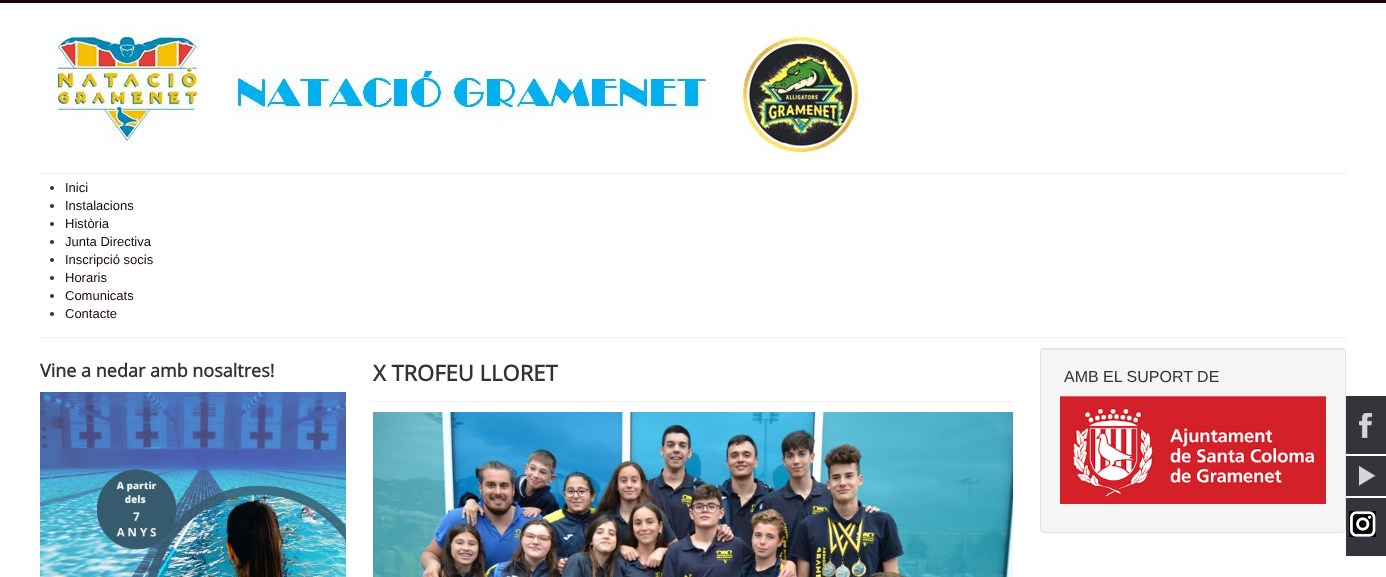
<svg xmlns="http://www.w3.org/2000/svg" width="1386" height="577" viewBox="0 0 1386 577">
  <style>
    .t1 { font: 13px Liberation Sans; fill: #1c060c; }
    .t2 { font: bold 18px Open Sans; fill: #333; }
    .t3 { font: bold 22px Open Sans; fill: #333; }
    .t4 { font: 16px Liberation Sans; fill: #333; }
  </style>
  <rect width="100%" height="100%" fill="#fff"/>
  <rect x="0" y="0" width="1386" height="3" fill="#1c060c"/>
  <image x="56" y="23" width="813" height="136" href="images/1.png"/>
  <rect x="1346" y="396" width="40" height="58" fill="#33353b"/>
  <image x="1359" y="413" width="13" height="25" href="images/2.png"/>
  <rect x="1346" y="456" width="40" height="40" fill="#33353b"/>
  <image x="1359" y="465" width="17" height="22" href="images/3.png"/>
  <rect x="1346" y="498" width="40" height="58" fill="#33353b"/>
  <image x="1349" y="511" width="27" height="26" href="images/4.png"/>
  <rect x="40" y="173" width="1306" height="1" fill="#ececec"/>
  <rect x="40" y="337" width="1306" height="1" fill="#ececec"/>
  <circle cx="52" cy="188" r="2" fill="#333"/>
  <text x="65" y="192" class="t1">Inici</text>
  <circle cx="52" cy="206" r="2" fill="#333"/>
  <text x="65" y="210" class="t1">Instalacions</text>
  <circle cx="52" cy="224" r="2" fill="#333"/>
  <text x="65" y="228" class="t1">Història</text>
  <circle cx="52" cy="242" r="2" fill="#333"/>
  <text x="65" y="246" class="t1">Junta Directiva</text>
  <circle cx="52" cy="260" r="2" fill="#333"/>
  <text x="65" y="264" class="t1">Inscripció socis</text>
  <circle cx="52" cy="278" r="2" fill="#333"/>
  <text x="65" y="282" class="t1">Horaris</text>
  <circle cx="52" cy="296" r="2" fill="#333"/>
  <text x="65" y="300" class="t1">Comunicats</text>
  <circle cx="52" cy="314" r="2" fill="#333"/>
  <text x="65" y="318" class="t1">Contacte</text>
  <text x="40" y="377" class="t2">Vine a nedar amb nosaltres!</text>
  <image x="40" y="392" width="306" height="185" href="images/5.png"/>
  <rect x="373" y="401" width="640" height="1" fill="#eee"/>
  <text x="373" y="381" class="t3">X TROFEU LLORET</text>
  <image x="373" y="412" width="640" height="165" href="images/6.png"/>
  <rect x="1040" y="348" width="306" height="185" rx="4" fill="#f5f5f5"/>
  <path d="M1044 350H1342C1344 350 1345 351 1345 353L1344 350L1343 349H1044C1042 349 1041 351 1041 353C1041 351 1042 350 1044 350Z" fill="#e9e9e9"/>
  <rect x="1040.5" y="348.5" width="305" height="184" rx="3.5" fill="none" stroke="#e3e3e3"/>
  <text x="1064" y="382" class="t4">AMB EL SUPORT DE</text>
  <image x="1060" y="396" width="266" height="108" href="images/7.png"/>
</svg>
